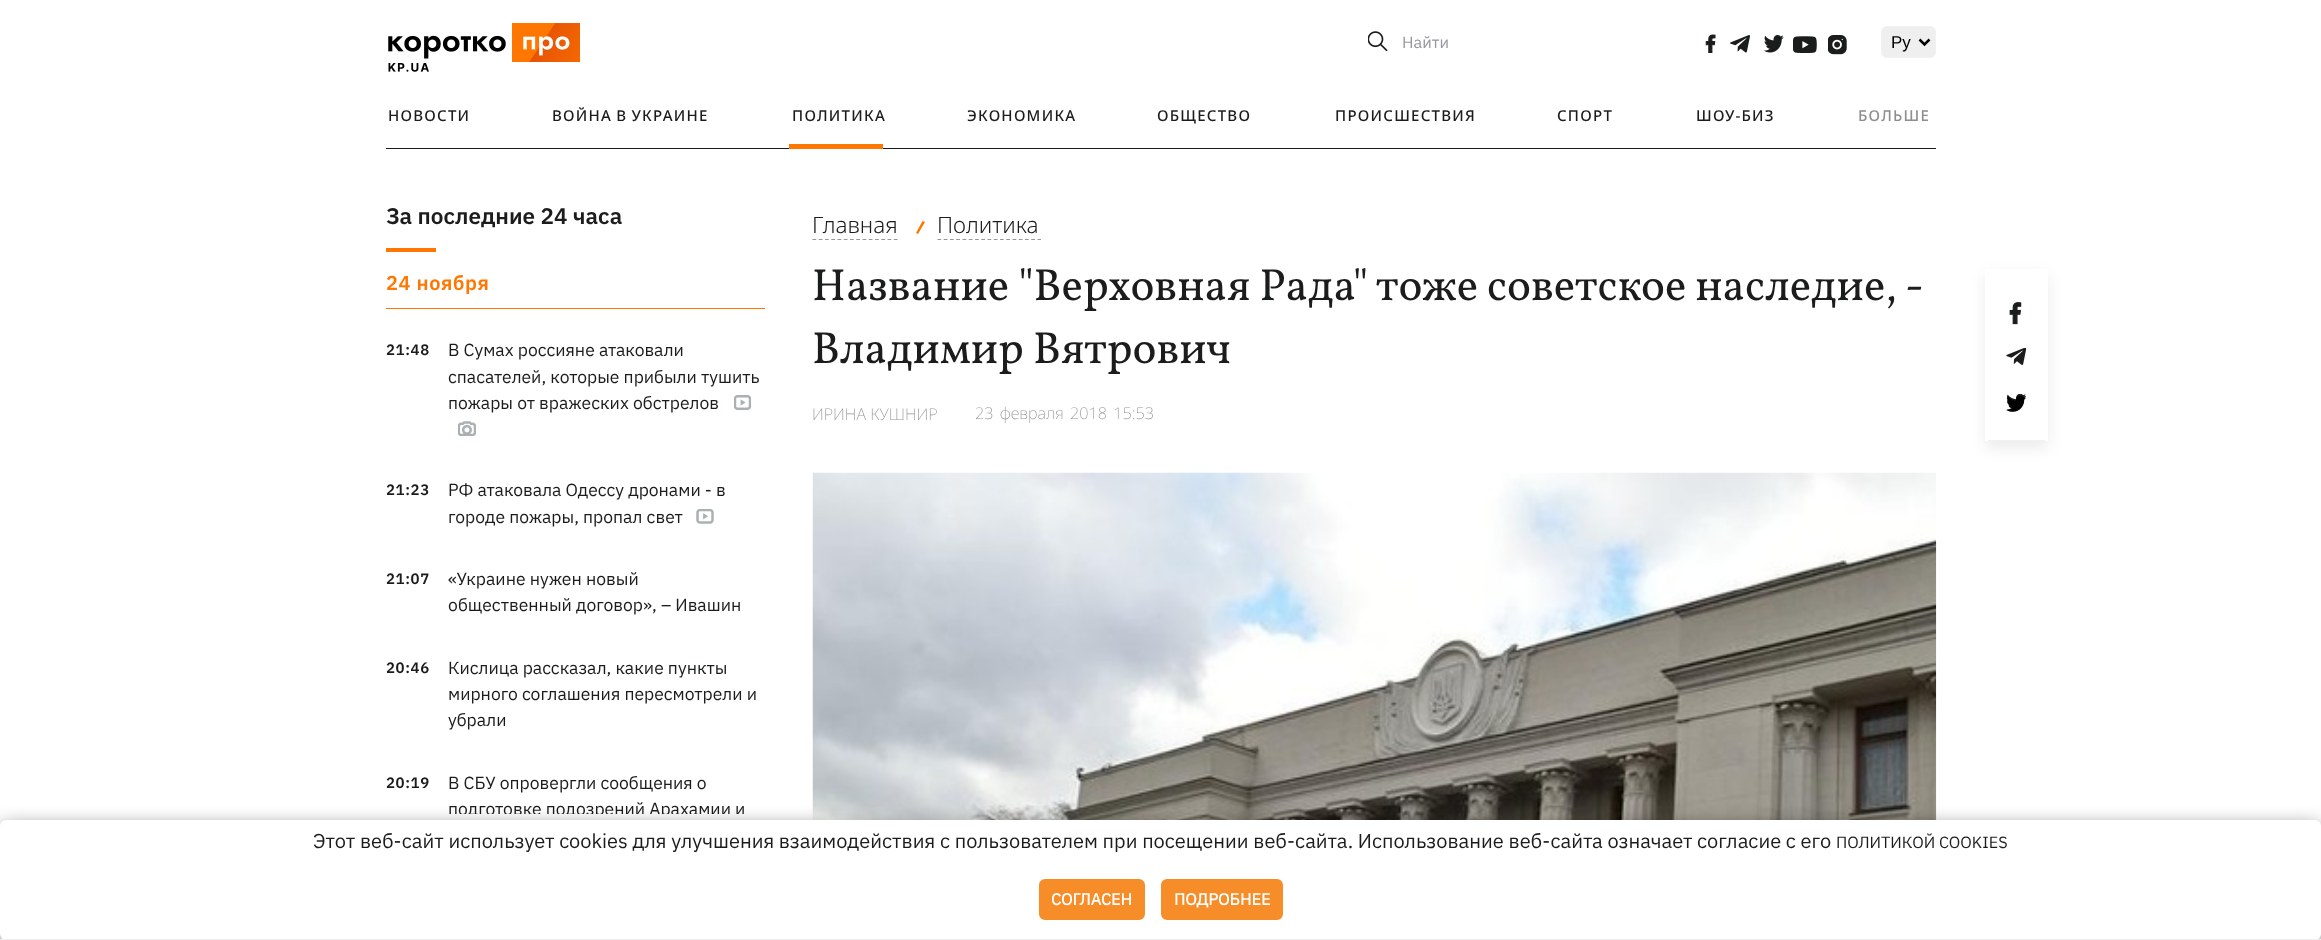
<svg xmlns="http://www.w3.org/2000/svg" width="2321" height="940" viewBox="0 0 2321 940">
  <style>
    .t1 { font: 16.25px IBM Plex Sans; fill: #96979b; }
    .t2 { font: 17px Liberation Sans; fill: #000; }
    .t3 { font: 500 15px Noto Sans; letter-spacing: 1.25px; fill: #1b1c1c; }
    .t4 { font: 500 15px Noto Sans; letter-spacing: 1.25px; fill: #8d8e8e; }
    .t5 { font: 600 22.5px IBM Plex Sans; fill: #1b1c1c; }
    .t6 { font: 600 20px IBM Plex Sans; letter-spacing: 0.6px; fill: #f70; }
    .t7 { font: 600 15px IBM Plex Sans; letter-spacing: 0.6px; fill: #1b1c1c; }
    .t8 { font: 17.5px IBM Plex Sans; fill: #1b1c1c; }
    .t9 { font: 300 22.5px Noto Sans; fill: #1b1c1c; }
    .t10 { font: 45px Vollkorn; fill: #1b1c1c; }
    .t11 { font: 200 16.25px Noto Sans; fill: #96979b; }
    .t12 { font: 20px IBM Plex Sans; fill: #1b1c1c; }
    .t13 { font: 16.25px IBM Plex Sans; fill: #1b1c1c; }
    .t14 { font: bold 16.25px IBM Plex Sans; fill: #fff; }
  </style>
  <defs>
    <clipPath id="clip1"><rect x="386" y="251" width="379" height="563"/></clipPath>
  </defs>
  <rect width="100%" height="100%" fill="#fff"/>
  <image x="388" y="23" width="192" height="49" href="images/1.png"/>
  <image x="1368" y="31" width="20" height="20" href="images/2.png"/>
  <text x="1402" y="48" class="t1">Найти</text>
  <image x="1705" y="34" width="11" height="19" href="images/3.png"/>
  <image x="1730" y="35" width="20" height="18" href="images/4.png"/>
  <image x="1764" y="35" width="20" height="18" href="images/5.png"/>
  <image x="1793" y="36" width="24" height="17" href="images/6.png"/>
  <image x="1828" y="35" width="19" height="20" href="images/7.png"/>
  <rect x="1881.5" y="26.5" width="54" height="31" rx="5.5" fill="#efefef" stroke="#f0f1f2"/>
  <path d="M1919.5 39.5L1924.5 44.5L1929.5 39.5" fill="none" stroke="#000" stroke-width="2.5"/>
  <text x="1891" y="48" class="t2">Ру</text>
  <rect x="386" y="148" width="1550" height="1" fill="#1b1c1c"/>
  <text x="388" y="121" class="t3">НОВОСТИ</text>
  <text x="552" y="121" word-spacing="-1" class="t3">ВОЙНА В УКРАИНЕ</text>
  <text x="792" y="121" class="t3">ПОЛИТИКА</text>
  <rect x="789" y="144" width="94" height="5" fill="#f70"/>
  <text x="967" y="121" class="t3">ЭКОНОМИКА</text>
  <text x="1157" y="121" class="t3">ОБЩЕСТВО</text>
  <text x="1335" y="121" class="t3">ПРОИСШЕСТВИЯ</text>
  <text x="1557" y="121" class="t3">СПОРТ</text>
  <text x="1696" y="121" class="t3">ШОУ-БИЗ</text>
  <text x="1858" y="121" class="t4">БОЛЬШЕ</text>
  <text x="386" y="224" class="t5">За последние 24 часа</text>
  <rect x="386" y="248" width="50" height="4" fill="#f70"/>
  <rect x="386" y="308" width="379" height="1" fill="#f70"/>
  <text x="386" y="290" class="t6">24 ноября</text>
  <text x="386" y="355" class="t7">21:48</text>
  <text x="448" y="356" class="t8">В Сумах россияне атаковали</text>
  <text x="448" y="383" class="t8">спасателей, которые прибыли тушить</text>
  <text x="448" y="409" class="t8">пожары от вражеских обстрелов</text>
  <image x="734" y="395" width="17" height="15" href="images/8.png"/>
  <image x="458" y="421" width="18" height="15" href="images/9.png"/>
  <text x="386" y="495" class="t7">21:23</text>
  <text x="448" y="496" class="t8">РФ атаковала Одессу дронами - в</text>
  <text x="448" y="523" class="t8">городе пожары, пропал свет</text>
  <image x="696" y="509" width="18" height="15" href="images/10.png"/>
  <text x="386" y="584" class="t7">21:07</text>
  <text x="448" y="585" class="t8">«Украине нужен новый</text>
  <text x="448" y="611" class="t8">общественный договор», – Ивашин</text>
  <text x="386" y="673" class="t7">20:46</text>
  <text x="448" y="674" class="t8">Кислица рассказал, какие пункты</text>
  <text x="448" y="700" class="t8">мирного соглашения пересмотрели и</text>
  <text x="448" y="726" class="t8">убрали</text>
  <text x="386" y="788" class="t7">20:19</text>
  <text x="448" y="789" class="t8">В СБУ опровергли сообщения о</text>
  <g clip-path="url(#clip1)">
    <text x="448" y="815" class="t8">подготовке подозрений Арахамии и</text>
  </g>
  <text x="812" y="233" class="t9">Главная</text>
  <path d="M812.5 239.5H897.5" fill="none" stroke="#96979b" stroke-width="1.2" stroke-dasharray="3.75 2.5"/>
  <path d="M916 233L922.5 221L925 222L918 234Z" fill="#f70"/>
  <text x="937" y="233" class="t9">Политика</text>
  <path d="M937.5 239.5H1041" fill="none" stroke="#96979b" stroke-width="1.2" stroke-dasharray="3.75 2.5"/>
  <text x="812" y="300" class="t10">Название "Верховная Рада" тоже советское наследие, -</text>
  <text x="812" y="363" class="t10">Владимир Вятрович</text>
  <rect x="1985" y="275" width="63" height="173" fill="#00000014" filter="blur(7.5px)"/>
  <rect x="1985" y="269" width="63" height="172" fill="#fff"/>
  <rect x="1988" y="440" width="57" height="1" fill="#f0f1f2"/>
  <image x="2009" y="302" width="13" height="23" href="images/11.png"/>
  <image x="2006" y="348" width="20" height="17" href="images/12.png"/>
  <image x="2006" y="394" width="20" height="17" href="images/13.png"/>
  <image x="2006" y="395" width="20" height="17" href="images/14.png"/>
  <text x="812" y="420" class="t11">ИРИНА КУШНИР</text>
  <text x="975" y="419" word-spacing="2" class="t11">23 февраля 2018 15:53</text>
  <image x="812" y="472" width="1125" height="348" href="images/15.png"/>
  <rect x="0" y="826" width="2321" height="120" rx="6" fill="#00000080" filter="blur(9.5px)"/>
  <rect x="0" y="820" width="2321" height="120" rx="6" fill="#fff"/>
  <rect x="0" y="939" width="2321" height="1" fill="#eceeef"/>
  <text x="313" y="848" class="t12">Этот веб-сайт использует cookies для улучшения взаимодействия с пользователем при посещении веб-сайта. Использование веб-сайта означает согласие с его</text>
  <text x="1836" y="848" class="t13">ПОЛИТИКОЙ COOKIES</text>
  <rect x="1040.5" y="880.5" width="103" height="38" rx="4.5" fill="#f68d29" stroke="#f68d29" stroke-width="3"/>
  <text x="1051" y="905" class="t14">СОГЛАСЕН</text>
  <rect x="1162.5" y="880.5" width="119" height="38" rx="4.5" fill="#f68d29" stroke="#f68d29" stroke-width="3"/>
  <text x="1174" y="905" class="t14">ПОДРОБНЕЕ</text>
</svg>
